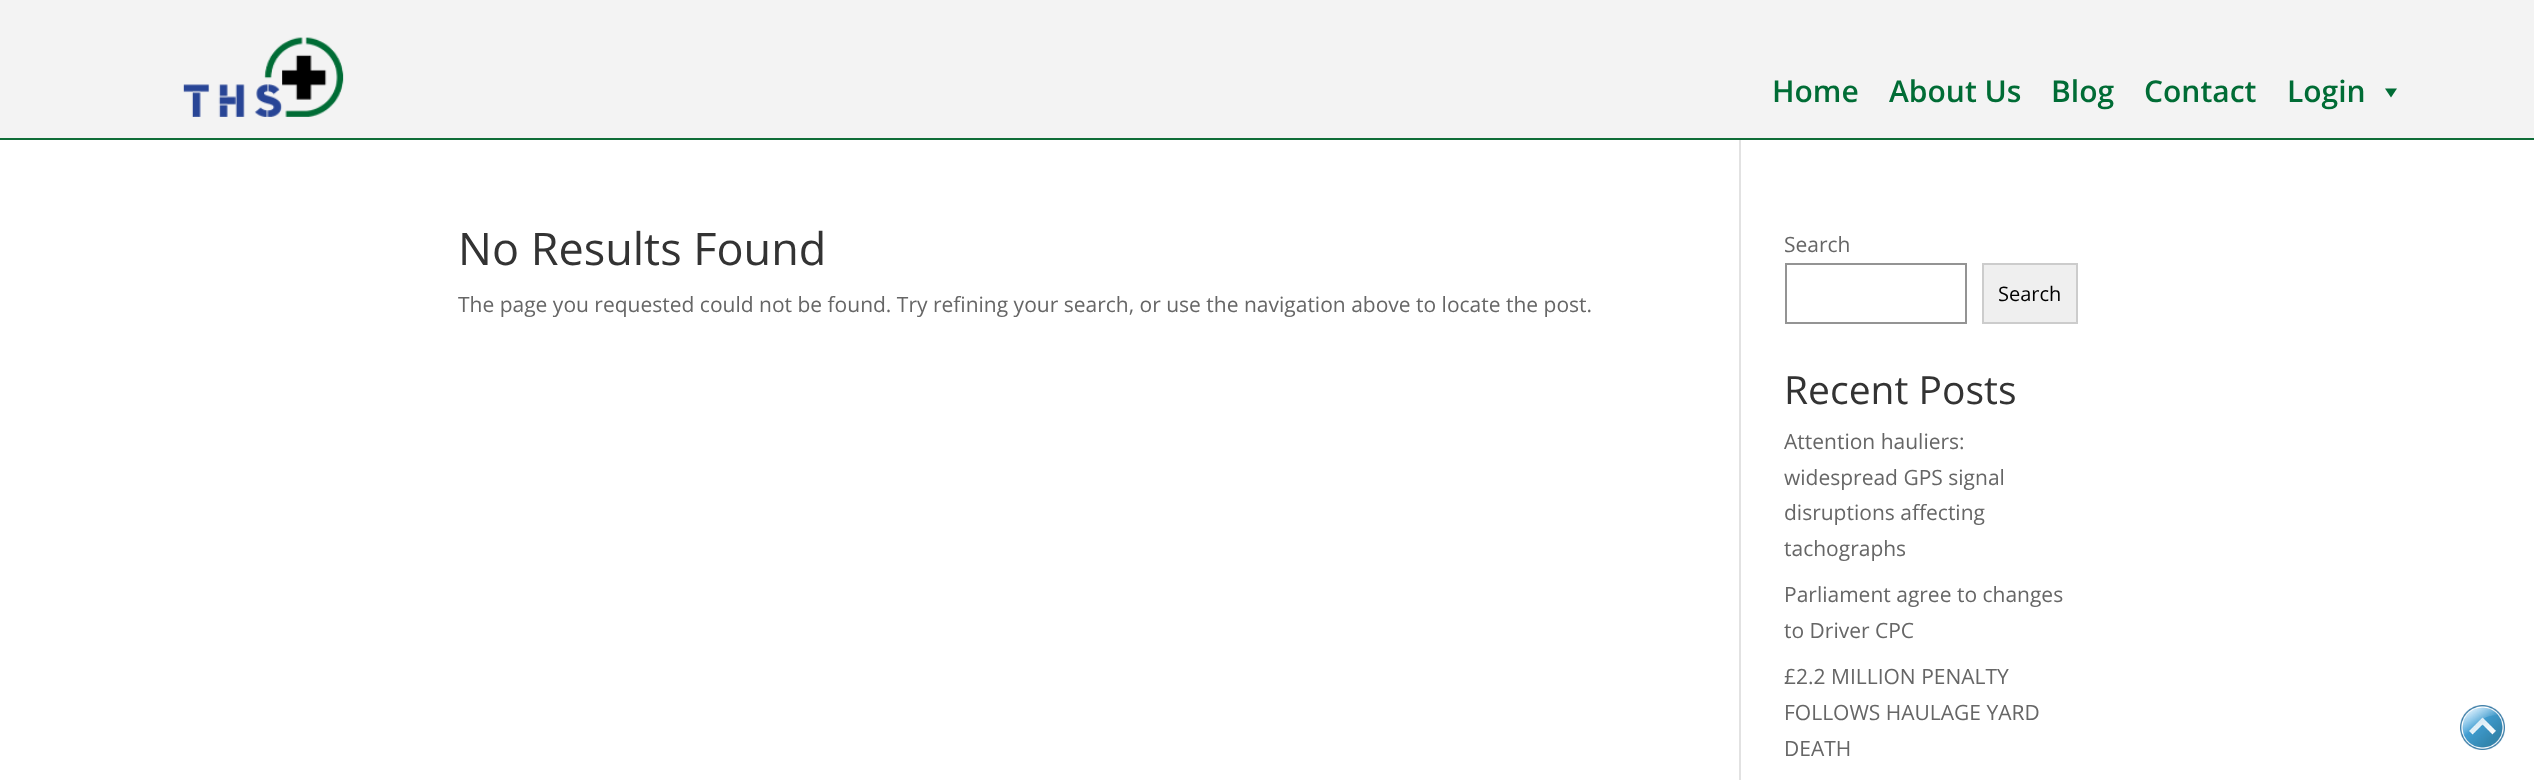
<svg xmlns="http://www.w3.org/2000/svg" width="2534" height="780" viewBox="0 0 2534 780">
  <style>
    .t1 { font: 600 30px Open Sans; fill: #006c35; }
    .t2 { font: 45px Open Sans; fill: #333; }
    .t3 { font: 21px Open Sans; fill: #666; }
    .t4 { font: 20px Open Sans; fill: #000; }
    .t5 { font: 39px Open Sans; fill: #333; }
  </style>
  <rect width="100%" height="100%" fill="#fff"/>
  <rect x="0" y="138" width="2534" height="2" fill="#0f6d38"/>
  <rect x="0" y="0" width="2534" height="138" fill="#f3f3f3"/>
  <image x="183" y="37" width="161" height="80" href="images/1.png"/>
  <text x="1772" y="102" class="t1">Home</text>
  <text x="1889" y="102" class="t1">About Us</text>
  <text x="2051" y="102" class="t1">Blog</text>
  <text x="2144" y="102" class="t1">Contact</text>
  <text x="2287" y="102" class="t1">Login</text>
  <path d="M2397 88.5L2391 97.5L2385 88.5Z" fill="#006c35"/>
  <rect x="1739" y="140" width="2" height="640" fill="#e2e2e2"/>
  <text x="458" y="265" class="t2">No Results Found</text>
  <text x="458" y="312" class="t3">The page you requested could not be found. Try refining your search, or use the navigation above to locate the post.</text>
  <text x="1784" y="252" class="t3">Search</text>
  <rect x="1786" y="264" width="180" height="59" fill="none" stroke="#949494" stroke-width="2"/>
  <rect x="1983" y="264" width="94" height="59" fill="#efefef" stroke="#ccc" stroke-width="2"/>
  <text x="1998" y="301" class="t4">Search</text>
  <text x="1784" y="404" class="t5">Recent Posts</text>
  <text x="1784" y="449" class="t3">Attention hauliers:</text>
  <text x="1784" y="485" class="t3">widespread GPS signal</text>
  <text x="1784" y="520" class="t3">disruptions affecting</text>
  <text x="1784" y="556" class="t3">tachographs</text>
  <text x="1784" y="602" class="t3">Parliament agree to changes</text>
  <text x="1784" y="638" class="t3">to Driver CPC</text>
  <text x="1784" y="684" class="t3">£2.2 MILLION PENALTY</text>
  <text x="1784" y="720" class="t3">FOLLOWS HAULAGE YARD</text>
  <text x="1784" y="756" class="t3">DEATH</text>
  <image x="2460" y="705" width="45" height="45" href="images/2.png"/>
</svg>
